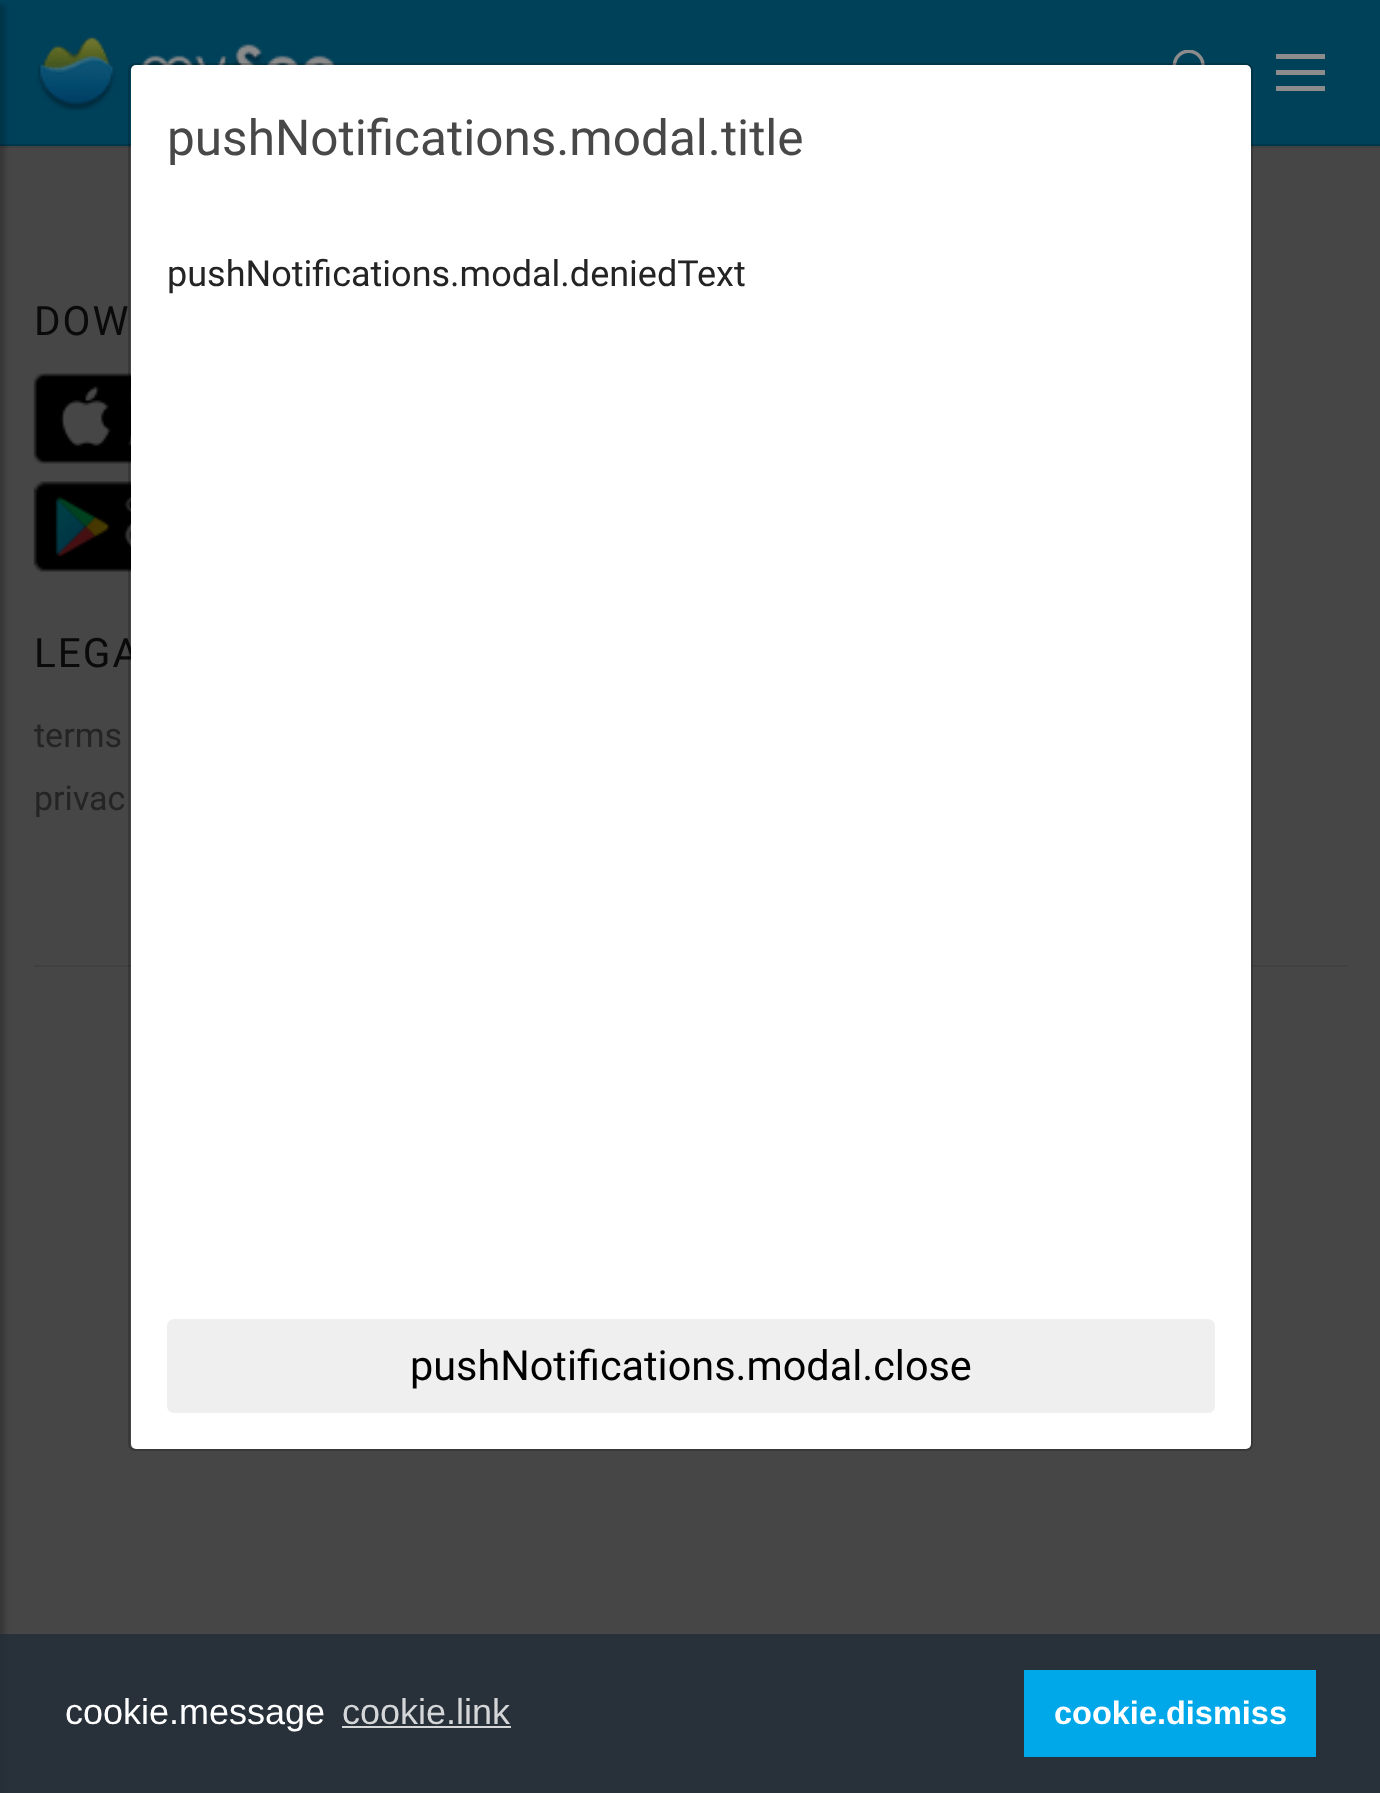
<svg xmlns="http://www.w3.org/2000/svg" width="1380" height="1793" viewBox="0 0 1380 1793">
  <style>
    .t1 { font: 40.5px Roboto; letter-spacing: 2px; fill: #0a0a0a; }
    .t2 { font: 34px Roboto; fill: #242424; }
    .t3 { font: 49.5px Roboto; fill: #484848; }
    .t4 { font: 36px Roboto; fill: #242424; }
    .t5 { font: 41.4px Roboto; fill: #000; }
    .t6 { font: 36px Liberation Sans; fill: #fff; }
    .t7 { font: 36px Liberation Sans; fill: #d4d6d8; }
    .t8 { font: bold 32.5px Liberation Sans; fill: #fff; }
  </style>
  <rect width="100%" height="100%" fill="#464646"/>
  <rect x="0" y="0" width="1380" height="144" fill="#00415a"/>
  <rect x="0" y="144" width="1380" height="2" fill="#00374c"/>
  <image x="36" y="35" width="300" height="76" href="images/1.png"/>
  <image x="1172" y="50" width="33" height="15" href="images/2.png"/>
  <rect x="1276" y="54" width="49" height="5" fill="#8c8c8c"/>
  <rect x="1276" y="70" width="49" height="5" fill="#8c8c8c"/>
  <rect x="1276" y="86" width="49" height="5" fill="#8c8c8c"/>
  <rect x="0" y="146" width="1380" height="2" fill="#404040"/>
  <rect x="-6" y="5" width="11" height="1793" fill="#00000033" filter="blur(2px)"/>
  <text x="34" y="335" class="t1">DOW</text>
  <image x="33" y="373" width="98" height="91" href="images/3.png"/>
  <image x="33" y="481" width="98" height="91" href="images/4.png"/>
  <text x="34" y="667" class="t1">LEGA</text>
  <text x="34" y="747" class="t2">terms</text>
  <text x="34" y="810" class="t2">privac</text>
  <rect x="34" y="965" width="1314" height="2" fill="#404040"/>
  <rect x="131" y="65" width="1120" height="1384" rx="5" fill="#fff"/>
  <rect x="129" y="64" width="1123" height="1386" rx="6" fill="none" stroke="#00000033" stroke-width="2"/>
  <text x="167" y="155" class="t3">pushNotifications.modal.title</text>
  <text x="167" y="286" class="t4">pushNotifications.modal.deniedText</text>
  <rect x="167" y="1319" width="1048" height="94" rx="7" fill="#efefef"/>
  <text x="410" y="1380" class="t5">pushNotifications.modal.close</text>
  <rect x="0" y="1634" width="1380" height="159" fill="#252e39e6"/>
  <text x="65" y="1724" class="t6">cookie.message</text>
  <text x="342" y="1724" class="t7">cookie.link</text>
  <rect x="342" y="1726" width="169" height="2" fill="#d4d6d8"/>
  <rect x="1024" y="1670" width="292" height="87" fill="#00a8e9"/>
  <text x="1054" y="1724" class="t8">cookie.dismiss</text>
</svg>
